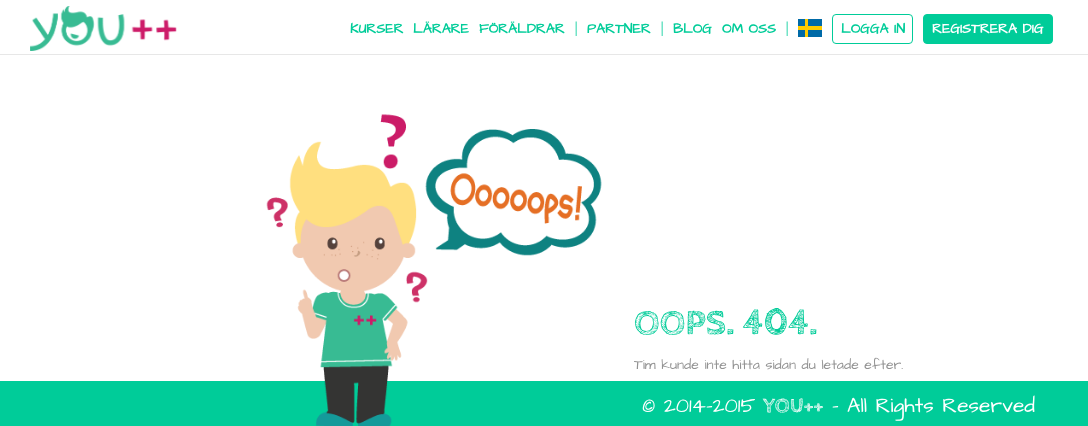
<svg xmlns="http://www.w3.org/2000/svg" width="1088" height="426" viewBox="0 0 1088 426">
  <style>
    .t1 { font: bold 14px Architects Daughter; fill: #0c9; }
    .t2 { font: 14px Architects Daughter; fill: #0c9; }
    .t3 { font: bold 14px Architects Daughter; fill: #fff; }
    .t4 { font: bold 36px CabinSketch; fill: #0c9; }
    .t5 { font: 14px Architects Daughter; fill: #929292; }
    .t6 { font: 21px Architects Daughter; fill: #fff; }
    .t7 { font: bold 21px CabinSketch; fill: #fff; }
  </style>
  <rect width="100%" height="100%" fill="#fff"/>
  <rect x="0" y="54" width="1088" height="1" fill="#e7e7e7"/>
  <image x="30" y="6" width="147" height="45" href="images/1.png"/>
  <text x="350" y="33" class="t1">KURSER</text>
  <text x="413" y="33" class="t1">LÄRARE</text>
  <text x="479" y="33" class="t1">FÖRÄLDRAR</text>
  <text x="575" y="35" class="t2">|</text>
  <text x="587" y="33" class="t1">PARTNER</text>
  <text x="661" y="35" class="t2">|</text>
  <text x="673" y="33" class="t1">BLOG</text>
  <text x="722" y="33" class="t1">OM OSS</text>
  <text x="786" y="35" class="t2">|</text>
  <image x="798" y="19" width="24" height="18" href="images/2.png"/>
  <rect x="832.5" y="14.5" width="80" height="29" rx="3.5" fill="none" stroke="#0c9"/>
  <text x="841" y="33" class="t1">LOGGA IN</text>
  <rect x="923.5" y="14.5" width="129" height="29" rx="3.5" fill="#0c9" stroke="#0c9"/>
  <text x="932" y="33" class="t3">REGISTRERA DIG</text>
  <rect x="0" y="381" width="1088" height="45" fill="#0c9"/>
  <image x="266" y="114" width="336" height="312" href="images/3.png"/>
  <text x="634" y="334" class="t4">OOPS. 404.</text>
  <text x="634" y="369" class="t5">Tim kunde inte hitta sidan du letade efter.</text>
  <text x="642" y="412" class="t6">© 2014-2015</text>
  <text x="763" y="412" class="t7">YOU++</text>
  <text x="832" y="412" class="t6">- All Rights Reserved</text>
</svg>
